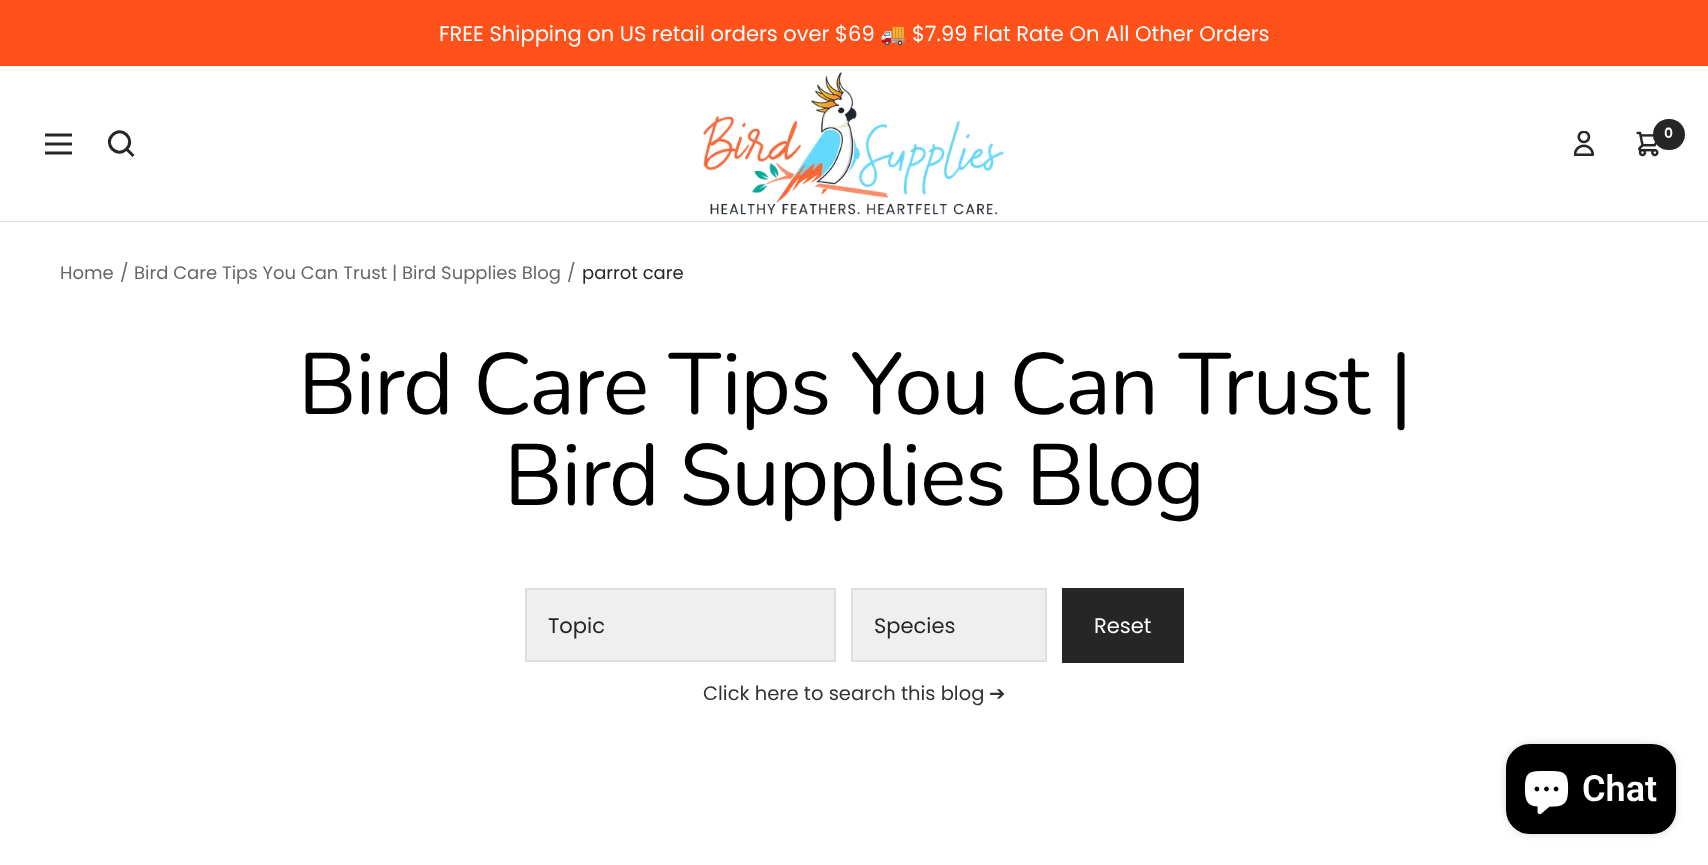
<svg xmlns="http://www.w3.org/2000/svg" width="1708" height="865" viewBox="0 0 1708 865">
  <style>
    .t1 { font: 21px Poppins; fill: #fff; }
    .t2 { font: 21px Noto Color Emoji; fill: #fff; }
    .t3 { font: 600 14px Poppins; fill: #fff; }
    .t4 { font: 18px Poppins; fill: #676767; }
    .t5 { font: 18px Poppins; fill: #262626; }
    .t6 { font: 87px Nunito; letter-spacing: -1.5px; fill: #000; }
    .t7 { font: 21px Poppins; fill: #262626; }
    .t8 { font: 19.5px Poppins; fill: #333; }
    .t9 { font: 19.5px DejaVu Sans; fill: #333; }
    .t10 { font: 600 36px Roboto; fill: #fff; }
  </style>
  <rect width="100%" height="100%" fill="#fff"/>
  <rect x="0" y="0" width="1708" height="66" fill="#ff521a"/>
  <text x="439" y="41" class="t1">FREE Shipping on US retail orders over $69</text>
  <text x="880" y="41" class="t2">🚚</text>
  <text x="912" y="41" class="t1">$7.99 Flat Rate On All Other Orders</text>
  <path d="M0 220V222H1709V68H1708V220Z" fill="#dedede"/>
  <rect x="0" y="220" width="1708" height="1" fill="#fff"/>
  <path d="M45 135H72M45 153H72ZM45 144H72Z" fill="none" stroke="#262626" stroke-width="3"/>
  <path d="M126.5 149C136 139.5 122 125.5 112.5 135C103 144.5 117 158.5 126.5 149ZM126.5 149L133.5 156" fill="none" stroke="#262626" stroke-width="3"/>
  <image x="703" y="72" width="301" height="143" href="images/1.png"/>
  <image x="1574" y="131" width="20" height="25" href="images/2.png"/>
  <image x="1636" y="131" width="23" height="26" href="images/3.png"/>
  <rect x="1653" y="119" width="32" height="31" rx="15.5" fill="#262626"/>
  <text x="1664" y="138" class="t3">0</text>
  <text x="60" y="279" class="t4">Home</text>
  <text x="120" y="279" class="t4">/</text>
  <text x="134" y="279" class="t4">Bird Care Tips You Can Trust | Bird Supplies Blog</text>
  <text x="567" y="279" class="t4">/</text>
  <text x="582" y="279" class="t5">parrot care</text>
  <text x="298" y="414" class="t6">Bird Care Tips You Can Trust |</text>
  <text x="504" y="505" class="t6">Bird Supplies Blog</text>
  <rect x="526" y="589" width="309" height="72" fill="#efefef" stroke="#dedede" stroke-width="2"/>
  <text x="548" y="633" class="t7">Topic</text>
  <rect x="852" y="589" width="194" height="72" fill="#efefef" stroke="#dedede" stroke-width="2"/>
  <text x="874" y="633" class="t7">Species</text>
  <rect x="1062" y="588" width="122" height="75" fill="#262626"/>
  <text x="1094" y="633" class="t1">Reset</text>
  <text x="703" y="700" class="t8">Click here to search this blog</text>
  <text x="989" y="700" class="t9">➔</text>
  <rect x="1506" y="744" width="170" height="90" rx="24" fill="#00000026" filter="blur(4px)"/>
  <rect x="1506" y="744" width="170" height="90" rx="24" fill="#000"/>
  <image x="1524" y="771" width="45" height="44" href="images/4.png"/>
  <text x="1582" y="801" class="t10">Chat</text>
</svg>
